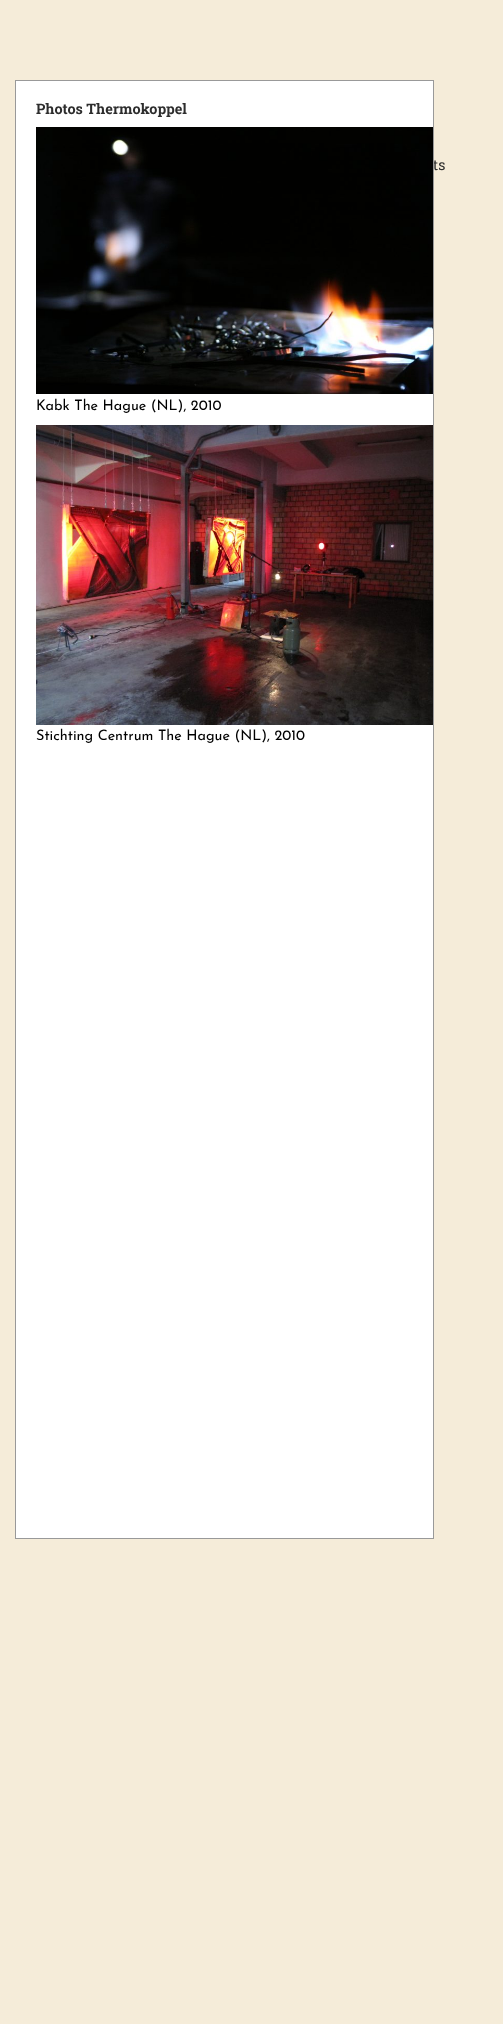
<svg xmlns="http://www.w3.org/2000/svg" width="503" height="2024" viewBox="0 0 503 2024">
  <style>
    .t1 { font: 14.4px Roboto Slab; fill: #2d2d2d; }
    .t2 { font: bold 14.4px Roboto Slab; fill: #2d2d2d; }
    .t3 { font: 14.4px Josefin Sans; fill: #000; }
  </style>
  <rect width="100%" height="100%" fill="#f5ecd9"/>
  <text x="433" y="170" class="t1">ts</text>
  <rect x="15.5" y="80.5" width="418" height="1458" fill="#fff" stroke="#999"/>
  <text x="36" y="114" class="t2">Photos Thermokoppel</text>
  <image x="36" y="127" width="397" height="267" href="images/1.png"/>
  <text x="36" y="410" class="t3">Kabk The Hague (NL), 2010</text>
  <image x="36" y="425" width="397" height="300" href="images/2.png"/>
  <text x="36" y="740" class="t3">Stichting Centrum The Hague (NL), 2010</text>
</svg>
